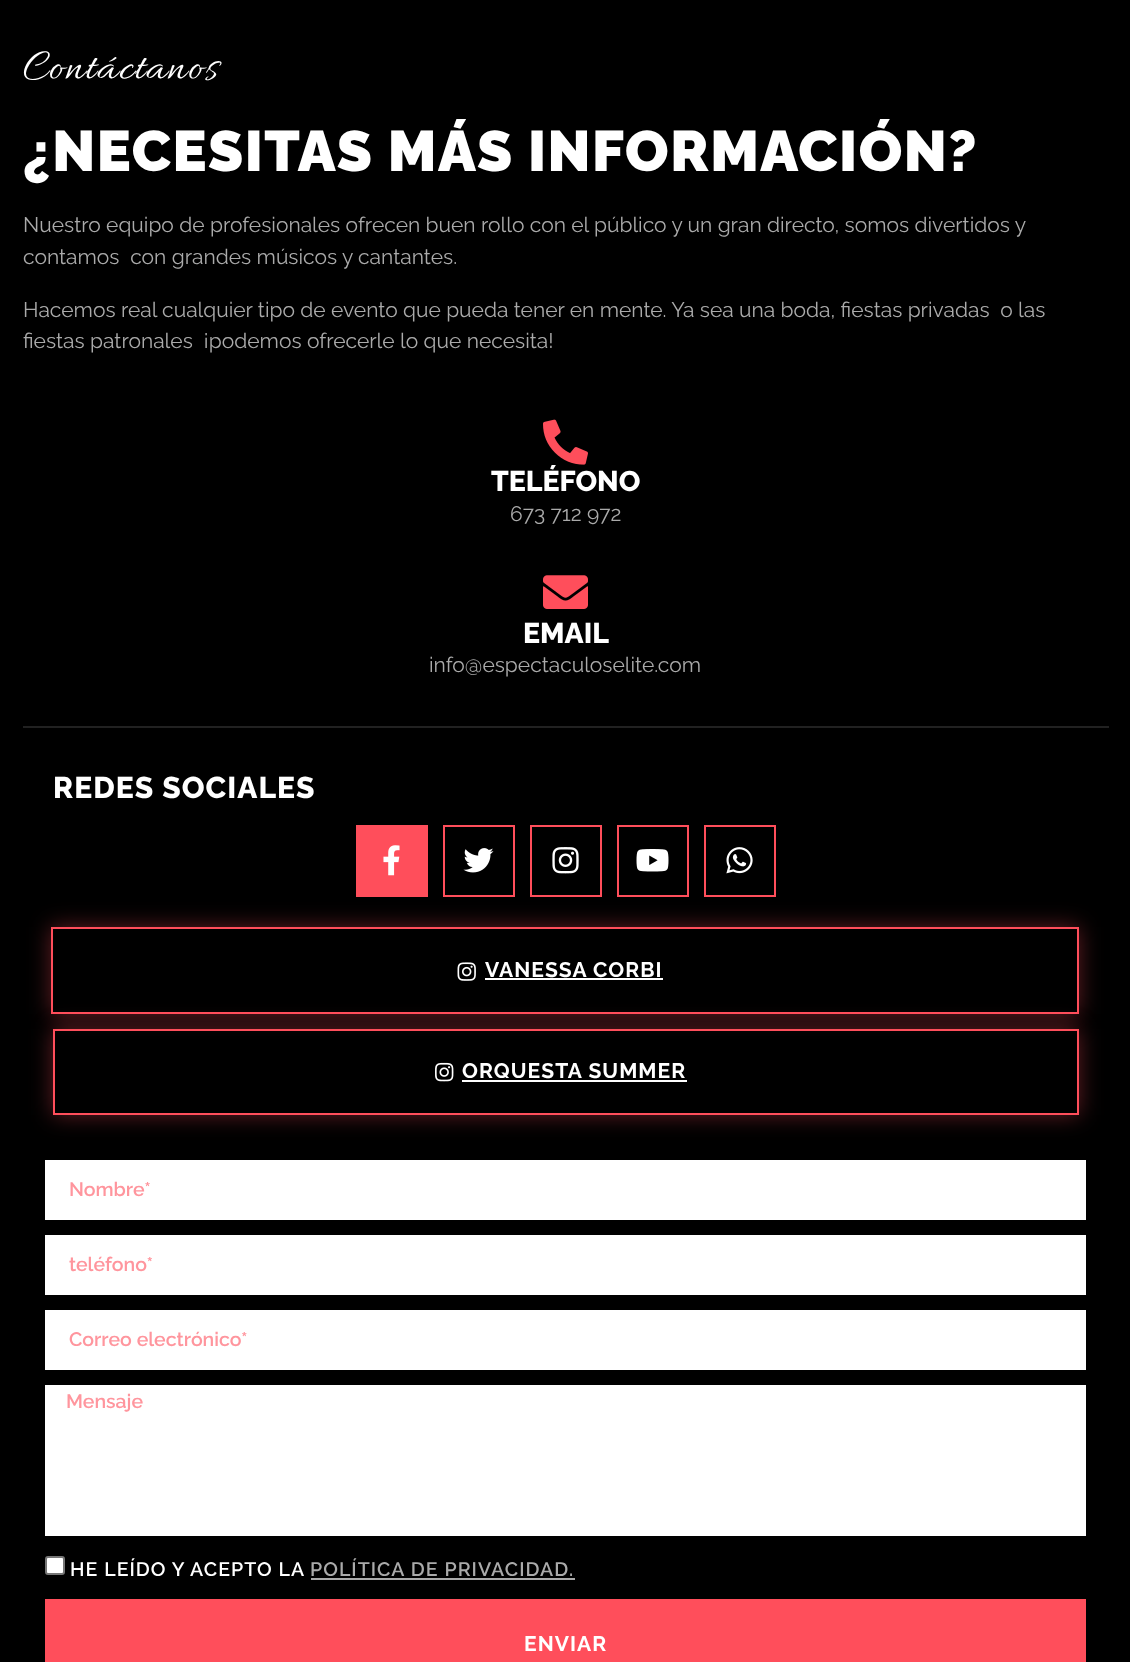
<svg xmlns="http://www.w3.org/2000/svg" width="1130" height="1662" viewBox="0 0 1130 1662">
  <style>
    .t1 { font: 45px Allura; letter-spacing: 1.5px; fill: #fff; }
    .t2 { font: 900 57px Raleway; letter-spacing: 1.5px; fill: #fff; }
    .t3 { font: 21px Raleway; fill: #aaa; }
    .t4 { font: 800 28.5px Raleway; fill: #fff; }
    .t5 { font: 800 30px Raleway; letter-spacing: 1.05px; fill: #fff; }
    .t6 { font: bold 21px Raleway; letter-spacing: 1.05px; fill: #fff; }
    .t7 { font: 600 19.5px Raleway; fill: #ff959d; }
    .t8 { font: 600 19.5px Raleway; letter-spacing: 1.05px; fill: #fff; }
    .t9 { font: 600 19.5px Raleway; letter-spacing: 1.05px; fill: #aaa; }
  </style>
  <defs>
    <clipPath id="clip1"><path d="M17 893H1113V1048H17ZM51 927H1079V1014H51Z" clip-rule="evenodd"/></clipPath>
    <clipPath id="clip2"><path d="M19 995H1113V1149H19ZM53 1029H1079V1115H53Z" clip-rule="evenodd"/></clipPath>
  </defs>
  <rect width="100%" height="100%" fill="#000"/>
  <text x="23" y="78" class="t1">Contáctanos</text>
  <text x="23" y="171" class="t2">¿NECESITAS MÁS INFORMACIÓN?</text>
  <text x="23" y="232" class="t3">Nuestro equipo de profesionales ofrecen buen rollo con el público y un gran directo, somos divertidos y</text>
  <text x="23" y="264" class="t3" xml:space="preserve">contamos  con grandes músicos y cantantes.</text>
  <text x="23" y="317" class="t3" xml:space="preserve">Hacemos real cualquier tipo de evento que pueda tener en mente. Ya sea una boda, fiestas privadas  o las</text>
  <text x="23" y="348" class="t3" xml:space="preserve">fiestas patronales  ¡podemos ofrecerle lo que necesita!</text>
  <image x="543" y="419" width="45" height="46" href="images/1.png"/>
  <text x="491" y="491" class="t4">TELÉFONO</text>
  <text x="510" y="521" class="t3">673 712 972</text>
  <image x="543" y="575" width="45" height="34" href="images/2.png"/>
  <text x="523" y="643" class="t4">EMAIL</text>
  <text x="429" y="672" class="t3">info@espectaculoselite.com</text>
  <rect x="23" y="726" width="1086" height="2" fill="#212121"/>
  <text x="53" y="798" class="t5">REDES SOCIALES</text>
  <rect x="356" y="825" width="72" height="72" fill="#ff4e5b"/>
  <image x="383" y="845" width="17" height="31" href="images/3.png"/>
  <rect x="444" y="826" width="70" height="70" fill="none" stroke="#ff4e5b" stroke-width="2"/>
  <image x="463" y="848" width="31" height="25" href="images/4.png"/>
  <rect x="531" y="826" width="70" height="70" fill="none" stroke="#ff4e5b" stroke-width="2"/>
  <image x="552" y="847" width="27" height="27" href="images/5.png"/>
  <rect x="618" y="826" width="70" height="70" fill="none" stroke="#ff4e5b" stroke-width="2"/>
  <image x="636" y="849" width="33" height="23" href="images/6.png"/>
  <rect x="705" y="826" width="70" height="70" fill="none" stroke="#ff4e5b" stroke-width="2"/>
  <image x="726" y="847" width="27" height="27" href="images/7.png"/>
  <g clip-path="url(#clip1)">
    <rect x="51" y="927" width="1028" height="87" fill="#ff4e5b63" filter="blur(11px)"/>
  </g>
  <rect x="52" y="928" width="1026" height="85" fill="none" stroke="#ff4e5b" stroke-width="2"/>
  <image x="457" y="962" width="19" height="19" href="images/8.png"/>
  <text x="485" y="977" class="t6">VANESSA CORBI</text>
  <rect x="485" y="978" width="178" height="2" fill="#fff"/>
  <g clip-path="url(#clip2)">
    <rect x="53" y="1029" width="1026" height="86" fill="#ff4e5b63" filter="blur(11px)"/>
  </g>
  <rect x="54" y="1030" width="1024" height="84" fill="none" stroke="#ff4e5b" stroke-width="2"/>
  <image x="435" y="1062" width="19" height="20" href="images/9.png"/>
  <text x="462" y="1078" class="t6">ORQUESTA SUMMER</text>
  <rect x="462" y="1080" width="225" height="2" fill="#fff"/>
  <rect x="45" y="1160" width="1041" height="60" fill="#fff"/>
  <text x="69" y="1196" class="t7">Nombre*</text>
  <rect x="45" y="1235" width="1041" height="60" fill="#fff"/>
  <text x="69" y="1271" class="t7">teléfono*</text>
  <rect x="45" y="1310" width="1041" height="60" fill="#fff"/>
  <text x="69" y="1346" class="t7">Correo electrónico*</text>
  <rect x="45" y="1385" width="1041" height="151" fill="#fff"/>
  <text x="66" y="1408" class="t7">Mensaje</text>
  <rect x="46" y="1557" width="18" height="17" rx="2" fill="#fff" stroke="#767676" stroke-width="2"/>
  <text x="70" y="1576" class="t8">HE LEÍDO Y ACEPTO LA</text>
  <text x="310" y="1576" class="t9">POLÍTICA DE PRIVACIDAD.</text>
  <rect x="311" y="1578" width="264" height="2" fill="#aaa"/>
  <rect x="45" y="1599" width="1041" height="63" fill="#ff4e5b"/>
  <text x="524" y="1651" class="t6">ENVIAR</text>
</svg>
